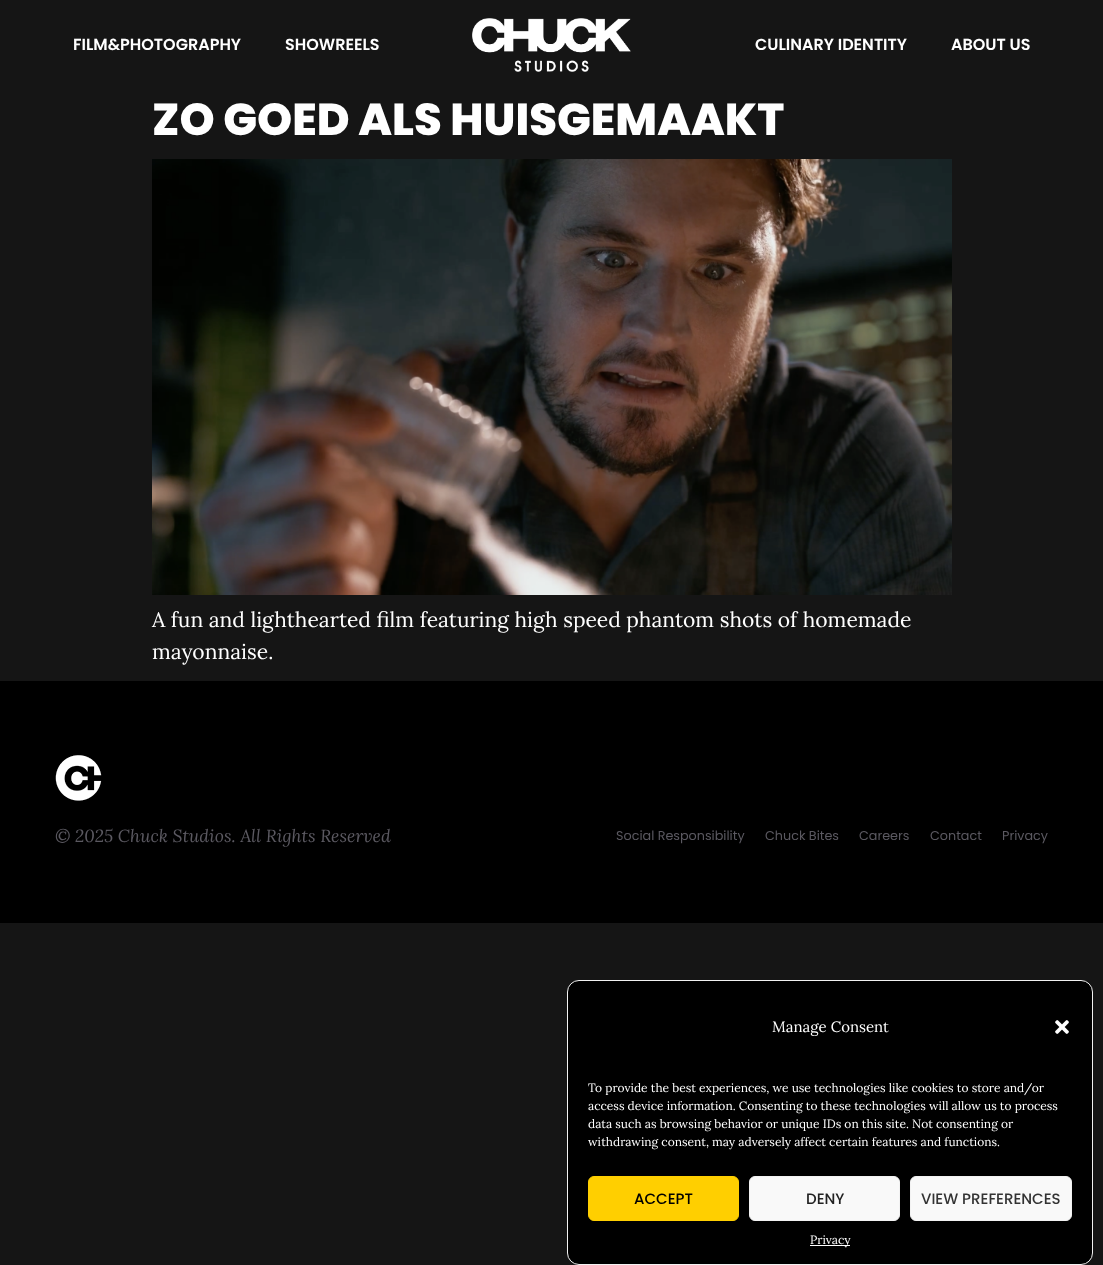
<svg xmlns="http://www.w3.org/2000/svg" width="1103" height="1265" viewBox="0 0 1103 1265">
  <style>
    .t1 { font: 600 16px Poppins; fill: #fff; }
    .t2 { font: 800 44.75px Poppins; fill: #fff; }
    .t3 { font: 21.05px Lora; fill: #fff; }
    .t4 { font: italic 17.6px Lora; fill: #5b5961; }
    .t5 { font: 12.75px Poppins; fill: #5b5961; }
    .t6 { font: 15px Lora; fill: #fff; }
    .t7 { font: 12px Lora; fill: #fff; }
    .t8 { font: 500 15px Poppins; fill: #000; }
    .t9 { font: 500 15px Poppins; fill: #222; }
    .t10 { font: 500 15px Poppins; fill: #333; }
  </style>
  <rect width="100%" height="100%" fill="#151515"/>
  <text x="73" y="50" class="t1">FILM&amp;PHOTOGRAPHY</text>
  <text x="285" y="50" class="t1">SHOWREELS</text>
  <image x="472" y="18" width="159" height="54" href="images/1.png"/>
  <text x="755" y="50" class="t1">CULINARY IDENTITY</text>
  <text x="951" y="50" class="t1">ABOUT US</text>
  <text x="152" y="135" class="t2">ZO GOED ALS HUISGEMAAKT</text>
  <image x="152" y="159" width="800" height="436" href="images/2.png"/>
  <text x="152" y="627" class="t3">A fun and lighthearted film featuring high speed phantom shots of homemade</text>
  <text x="152" y="659" class="t3">mayonnaise.</text>
  <rect x="0" y="681" width="1103" height="242" fill="#000"/>
  <image x="55" y="755" width="47" height="46" href="images/3.png"/>
  <text x="55" y="842" class="t4">© 2025 Chuck Studios. All Rights Reserved</text>
  <text x="616" y="840" class="t5">Social Responsibility</text>
  <text x="765" y="840" class="t5">Chuck Bites</text>
  <text x="859" y="840" class="t5">Careers</text>
  <text x="930" y="840" class="t5">Contact</text>
  <text x="1002" y="840" class="t5">Privacy</text>
  <rect x="567.5" y="980.5" width="525" height="284" rx="11.5" fill="#000" stroke="#f2f2f2"/>
  <text x="772" y="1032" class="t6">Manage Consent</text>
  <image x="1055" y="1020" width="14" height="14" href="images/4.png"/>
  <text x="588" y="1092" class="t7">To provide the best experiences, we use technologies like cookies to store and/or</text>
  <text x="588" y="1110" class="t7">access device information. Consenting to these technologies will allow us to process</text>
  <text x="588" y="1128" class="t7">data such as browsing behavior or unique IDs on this site. Not consenting or</text>
  <text x="588" y="1146" class="t7">withdrawing consent, may adversely affect certain features and functions.</text>
  <rect x="588.5" y="1176.5" width="150" height="44" rx="5.5" fill="#ffcf00" stroke="#ffcf00"/>
  <text x="634" y="1204" class="t8">ACCEPT</text>
  <rect x="749.5" y="1176.5" width="150" height="44" rx="5.5" fill="#f9f9f9" stroke="#f2f2f2"/>
  <text x="806" y="1204" class="t9">DENY</text>
  <rect x="910.5" y="1176.5" width="161" height="44" rx="5.5" fill="#f9f9f9" stroke="#f2f2f2"/>
  <text x="921" y="1204" class="t10">VIEW PREFERENCES</text>
  <rect x="810" y="1245" width="40" height="1" fill="#fff"/>
  <text x="810" y="1244" class="t7">Privacy</text>
</svg>
